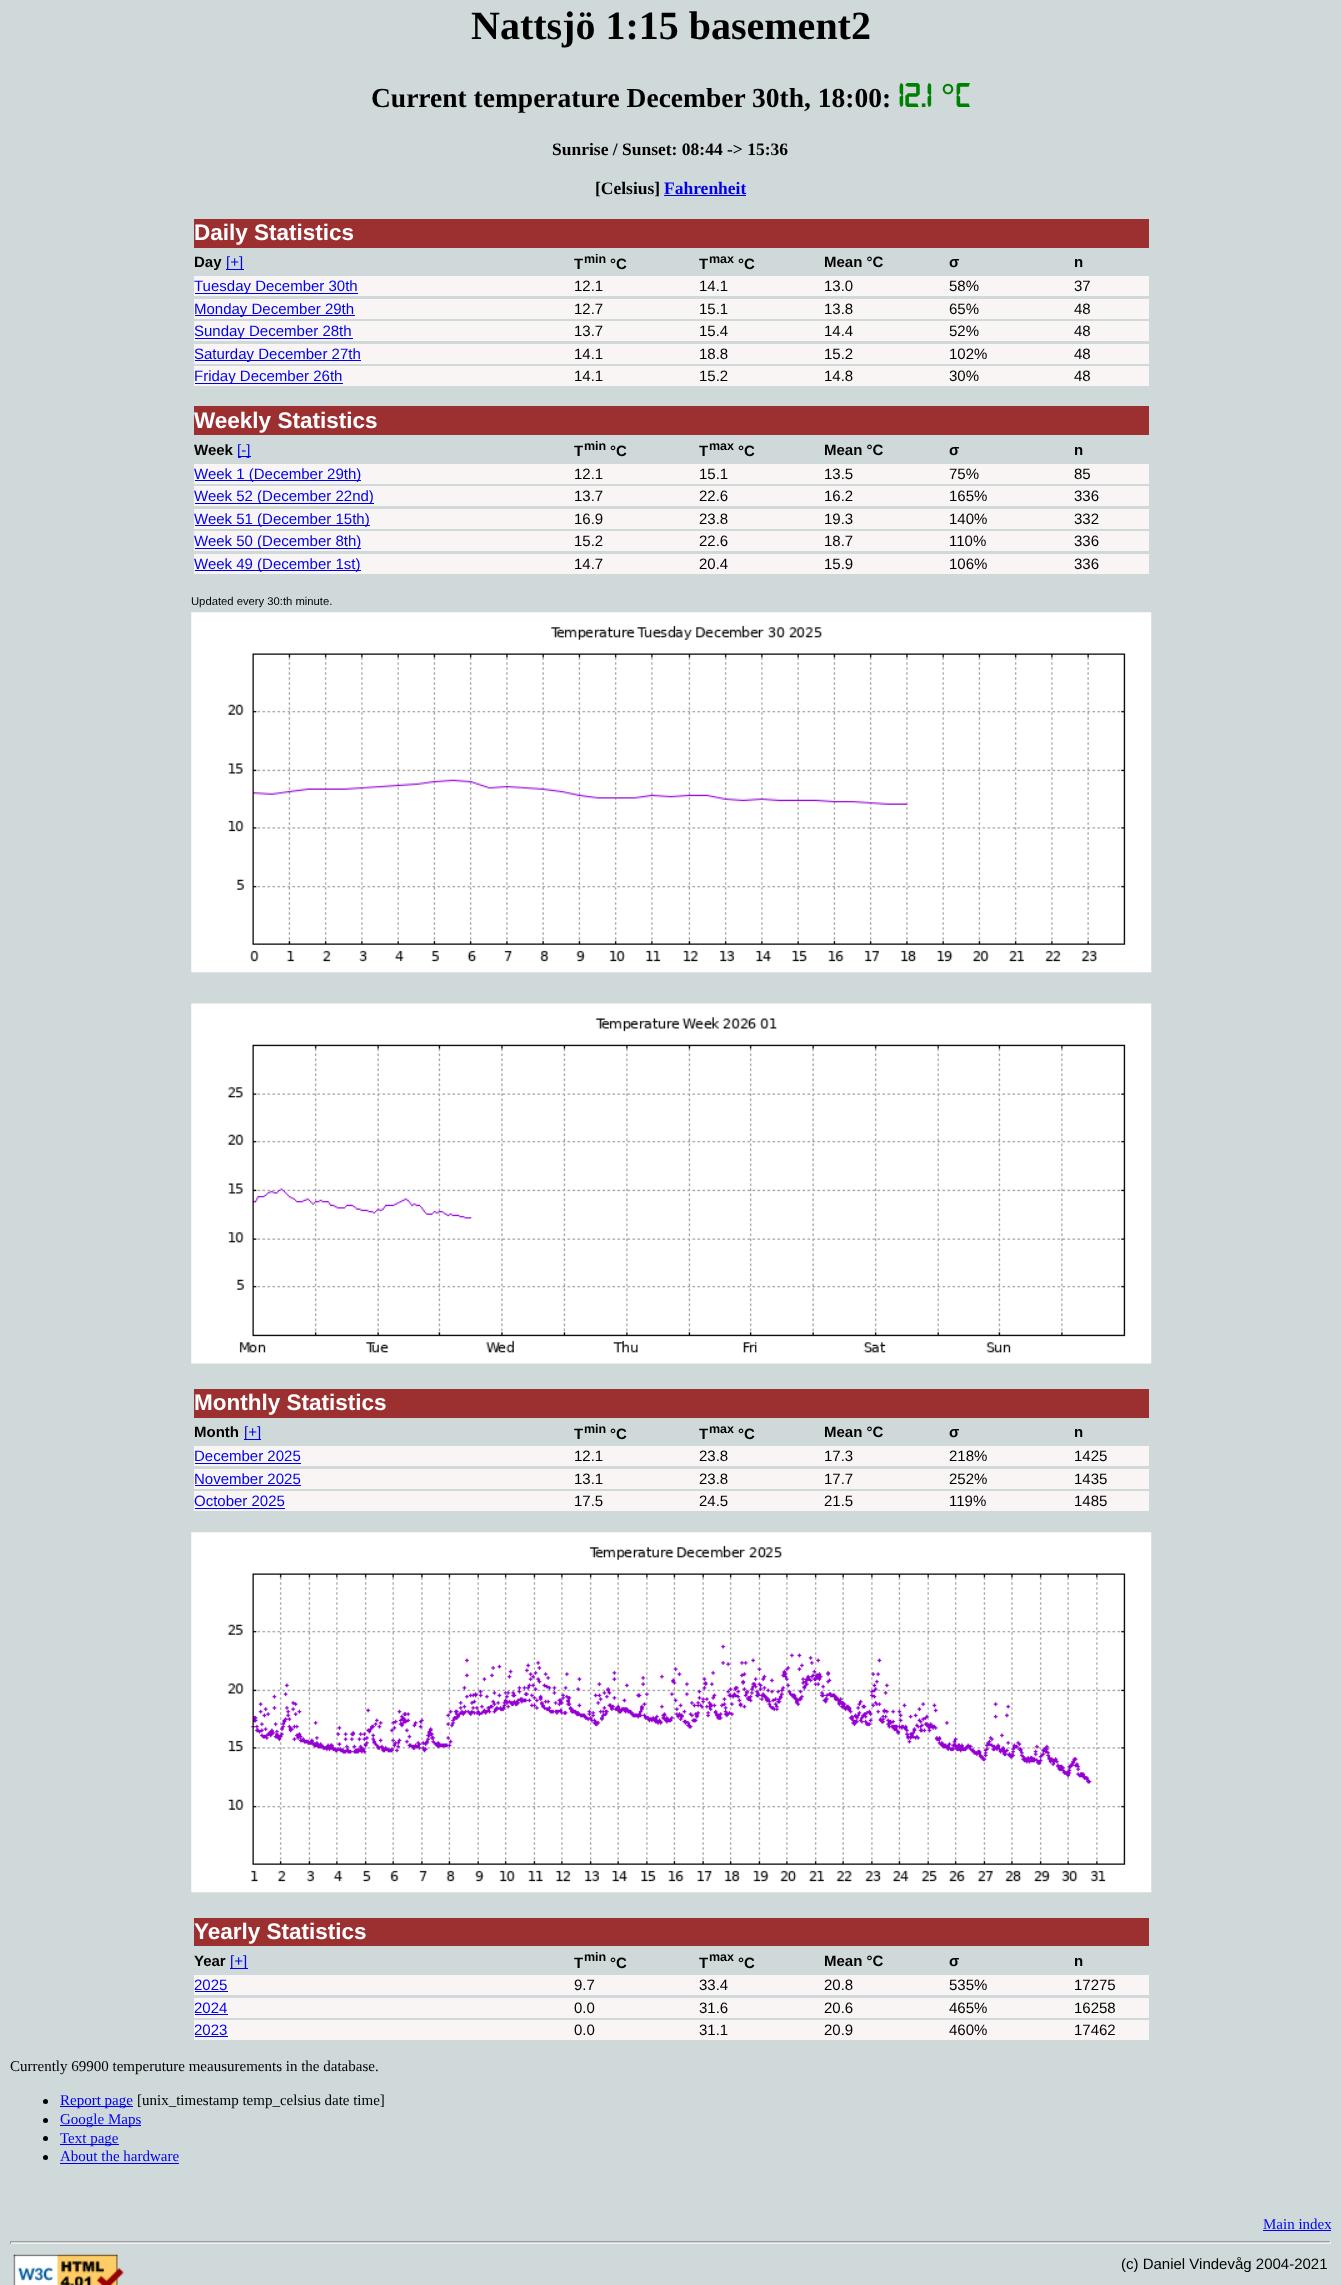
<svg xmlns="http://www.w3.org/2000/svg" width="1341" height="2285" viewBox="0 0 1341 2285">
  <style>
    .t1 { font: bold 40px Liberation Serif; fill: #000; }
    .t2 { font: bold 27.5px Liberation Serif; fill: #000; }
    .t3 { font: bold 35px 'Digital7'; fill: #008000; }
    .t4 { font: bold 35px Liberation Serif; fill: #008000; }
    .t5 { font: bold 17.5px Liberation Serif; fill: #000; }
    .t6 { font: bold 17.5px Liberation Serif; fill: #00e; }
    .t7 { font: bold 22.5px Liberation Sans; fill: #fff; }
    .t8 { font: bold 15px Liberation Sans; fill: #000; }
    .t9 { font: 15px Liberation Sans; fill: #00e; }
    .t10 { font: bold 12.5px Liberation Sans; fill: #000; }
    .t11 { font: 15px Liberation Sans; fill: #000; }
    .t12 { font: 11.25px Liberation Sans; fill: #000; }
    .t13 { font: 15px Liberation Serif; fill: #000; }
    .t14 { font: 15px Liberation Serif; fill: #00e; }
  </style>
  <rect width="100%" height="100%" fill="#cfd9da"/>
  <text x="471" y="39" class="t1">Nattsjö 1:15 basement2</text>
  <text x="371" y="107" class="t2">Current temperature December 30th, 18:00:</text>
  <text x="898" y="107" class="t3">12.1</text>
  <text x="941" y="107" class="t4">°</text>
  <text x="955" y="107" class="t3">C</text>
  <text x="552" y="155" class="t5">Sunrise / Sunset: 08:44 -&gt; 15:36</text>
  <text x="595" y="194" class="t5">[Celsius]</text>
  <text x="664" y="194" class="t6">Fahrenheit</text>
  <rect x="664" y="195" width="82" height="1" fill="#00e"/>
  <rect x="194" y="219" width="955" height="29" fill="#9c3031"/>
  <text x="194" y="240" class="t7">Daily Statistics</text>
  <text x="194" y="267" class="t8">Day</text>
  <rect x="226" y="269" width="18" height="1" fill="#00e"/>
  <text x="226" y="267" class="t9">[+]</text>
  <text x="574" y="269" class="t8">T</text>
  <text x="584" y="263" class="t10">min</text>
  <text x="610" y="269" class="t8">°C</text>
  <text x="699" y="269" class="t8">T</text>
  <text x="709" y="263" class="t10">max</text>
  <text x="738" y="269" class="t8">°C</text>
  <text x="824" y="267" class="t8">Mean °C</text>
  <text x="949" y="267" class="t8">σ</text>
  <text x="1074" y="267" class="t8">n</text>
  <rect x="194" y="276" width="955" height="20" fill="#f9f5f5"/>
  <rect x="195" y="293" width="163" height="1" fill="#00e"/>
  <text x="194" y="291" class="t9">Tuesday December 30th</text>
  <text x="574" y="291" class="t11">12.1</text>
  <text x="699" y="291" class="t11">14.1</text>
  <text x="824" y="291" class="t11">13.0</text>
  <text x="949" y="291" class="t11">58%</text>
  <text x="1074" y="291" class="t11">37</text>
  <rect x="194" y="299" width="955" height="20" fill="#f9f5f5"/>
  <rect x="195" y="315" width="160" height="1" fill="#00e"/>
  <text x="194" y="314" class="t9">Monday December 29th</text>
  <text x="574" y="314" class="t11">12.7</text>
  <text x="699" y="314" class="t11">15.1</text>
  <text x="824" y="314" class="t11">13.8</text>
  <text x="949" y="314" class="t11">65%</text>
  <text x="1074" y="314" class="t11">48</text>
  <rect x="194" y="321" width="955" height="20" fill="#f9f5f5"/>
  <rect x="195" y="338" width="158" height="1" fill="#00e"/>
  <text x="194" y="336" class="t9">Sunday December 28th</text>
  <text x="574" y="336" class="t11">13.7</text>
  <text x="699" y="336" class="t11">15.4</text>
  <text x="824" y="336" class="t11">14.4</text>
  <text x="949" y="336" class="t11">52%</text>
  <text x="1074" y="336" class="t11">48</text>
  <rect x="194" y="344" width="955" height="20" fill="#f9f5f5"/>
  <rect x="195" y="360" width="166" height="1" fill="#00e"/>
  <text x="194" y="359" class="t9">Saturday December 27th</text>
  <text x="574" y="359" class="t11">14.1</text>
  <text x="699" y="359" class="t11">18.8</text>
  <text x="824" y="359" class="t11">15.2</text>
  <text x="949" y="359" class="t11">102%</text>
  <text x="1074" y="359" class="t11">48</text>
  <rect x="194" y="366" width="955" height="20" fill="#f9f5f5"/>
  <rect x="195" y="383" width="148" height="1" fill="#00e"/>
  <text x="194" y="381" class="t9">Friday December 26th</text>
  <text x="574" y="381" class="t11">14.1</text>
  <text x="699" y="381" class="t11">15.2</text>
  <text x="824" y="381" class="t11">14.8</text>
  <text x="949" y="381" class="t11">30%</text>
  <text x="1074" y="381" class="t11">48</text>
  <rect x="194" y="406" width="955" height="29" fill="#9c3031"/>
  <text x="194" y="428" class="t7">Weekly Statistics</text>
  <text x="194" y="455" class="t8">Week</text>
  <rect x="238" y="456" width="13" height="1" fill="#00e"/>
  <text x="237" y="455" class="t9">[-]</text>
  <text x="574" y="456" class="t8">T</text>
  <text x="584" y="450" class="t10">min</text>
  <text x="610" y="456" class="t8">°C</text>
  <text x="699" y="456" class="t8">T</text>
  <text x="709" y="450" class="t10">max</text>
  <text x="738" y="456" class="t8">°C</text>
  <text x="824" y="455" class="t8">Mean °C</text>
  <text x="949" y="455" class="t8">σ</text>
  <text x="1074" y="455" class="t8">n</text>
  <rect x="194" y="464" width="955" height="20" fill="#f9f5f5"/>
  <rect x="195" y="480" width="166" height="1" fill="#00e"/>
  <text x="194" y="479" class="t9">Week 1 (December 29th)</text>
  <text x="574" y="479" class="t11">12.1</text>
  <text x="699" y="479" class="t11">15.1</text>
  <text x="824" y="479" class="t11">13.5</text>
  <text x="949" y="479" class="t11">75%</text>
  <text x="1074" y="479" class="t11">85</text>
  <rect x="194" y="486" width="955" height="20" fill="#f9f5f5"/>
  <rect x="195" y="503" width="179" height="1" fill="#00e"/>
  <text x="194" y="501" class="t9">Week 52 (December 22nd)</text>
  <text x="574" y="501" class="t11">13.7</text>
  <text x="699" y="501" class="t11">22.6</text>
  <text x="824" y="501" class="t11">16.2</text>
  <text x="949" y="501" class="t11">165%</text>
  <text x="1074" y="501" class="t11">336</text>
  <rect x="194" y="509" width="955" height="20" fill="#f9f5f5"/>
  <rect x="195" y="525" width="175" height="1" fill="#00e"/>
  <text x="194" y="524" class="t9">Week 51 (December 15th)</text>
  <text x="574" y="524" class="t11">16.9</text>
  <text x="699" y="524" class="t11">23.8</text>
  <text x="824" y="524" class="t11">19.3</text>
  <text x="949" y="524" class="t11">140%</text>
  <text x="1074" y="524" class="t11">332</text>
  <rect x="194" y="531" width="955" height="20" fill="#f9f5f5"/>
  <rect x="195" y="548" width="166" height="1" fill="#00e"/>
  <text x="194" y="546" class="t9">Week 50 (December 8th)</text>
  <text x="574" y="546" class="t11">15.2</text>
  <text x="699" y="546" class="t11">22.6</text>
  <text x="824" y="546" class="t11">18.7</text>
  <text x="949" y="546" class="t11">110%</text>
  <text x="1074" y="546" class="t11">336</text>
  <rect x="194" y="554" width="955" height="20" fill="#f9f5f5"/>
  <rect x="195" y="570" width="166" height="1" fill="#00e"/>
  <text x="194" y="569" class="t9">Week 49 (December 1st)</text>
  <text x="574" y="569" class="t11">14.7</text>
  <text x="699" y="569" class="t11">20.4</text>
  <text x="824" y="569" class="t11">15.9</text>
  <text x="949" y="569" class="t11">106%</text>
  <text x="1074" y="569" class="t11">336</text>
  <text x="191" y="605" class="t12">Updated every 30:th minute.</text>
  <image x="191" y="612" width="961" height="361" href="images/1.png"/>
  <image x="191" y="1003" width="961" height="361" href="images/2.png"/>
  <rect x="194" y="1389" width="955" height="29" fill="#9c3031"/>
  <text x="194" y="1410" class="t7">Monthly Statistics</text>
  <text x="194" y="1437" class="t8">Month</text>
  <rect x="244" y="1439" width="17" height="1" fill="#00e"/>
  <text x="244" y="1437" class="t9">[+]</text>
  <text x="574" y="1439" class="t8">T</text>
  <text x="584" y="1433" class="t10">min</text>
  <text x="610" y="1439" class="t8">°C</text>
  <text x="699" y="1439" class="t8">T</text>
  <text x="709" y="1433" class="t10">max</text>
  <text x="738" y="1439" class="t8">°C</text>
  <text x="824" y="1437" class="t8">Mean °C</text>
  <text x="949" y="1437" class="t8">σ</text>
  <text x="1074" y="1437" class="t8">n</text>
  <rect x="194" y="1446" width="955" height="20" fill="#f9f5f5"/>
  <text x="194" y="1461" class="t9">December 2025</text>
  <rect x="195" y="1463" width="106" height="1" fill="#00e"/>
  <text x="574" y="1461" class="t11">12.1</text>
  <text x="699" y="1461" class="t11">23.8</text>
  <text x="824" y="1461" class="t11">17.3</text>
  <text x="949" y="1461" class="t11">218%</text>
  <text x="1074" y="1461" class="t11">1425</text>
  <rect x="194" y="1469" width="955" height="20" fill="#f9f5f5"/>
  <text x="194" y="1484" class="t9">November 2025</text>
  <rect x="195" y="1485" width="106" height="1" fill="#00e"/>
  <text x="574" y="1484" class="t11">13.1</text>
  <text x="699" y="1484" class="t11">23.8</text>
  <text x="824" y="1484" class="t11">17.7</text>
  <text x="949" y="1484" class="t11">252%</text>
  <text x="1074" y="1484" class="t11">1435</text>
  <rect x="194" y="1491" width="955" height="20" fill="#f9f5f5"/>
  <text x="194" y="1506" class="t9">October 2025</text>
  <rect x="195" y="1508" width="90" height="1" fill="#00e"/>
  <text x="574" y="1506" class="t11">17.5</text>
  <text x="699" y="1506" class="t11">24.5</text>
  <text x="824" y="1506" class="t11">21.5</text>
  <text x="949" y="1506" class="t11">119%</text>
  <text x="1074" y="1506" class="t11">1485</text>
  <image x="191" y="1532" width="961" height="361" href="images/3.png"/>
  <rect x="194" y="1918" width="955" height="28" fill="#9c3031"/>
  <text x="194" y="1939" class="t7">Yearly Statistics</text>
  <text x="194" y="1966" class="t8">Year</text>
  <rect x="230" y="1968" width="18" height="1" fill="#00e"/>
  <text x="230" y="1966" class="t9">[+]</text>
  <text x="584" y="1961" class="t10">min</text>
  <text x="574" y="1968" class="t8">T</text>
  <text x="610" y="1968" class="t8">°C</text>
  <text x="699" y="1968" class="t8">T</text>
  <text x="709" y="1961" class="t10">max</text>
  <text x="738" y="1968" class="t8">°C</text>
  <text x="824" y="1966" class="t8">Mean °C</text>
  <text x="949" y="1966" class="t8">σ</text>
  <text x="1074" y="1966" class="t8">n</text>
  <rect x="194" y="1975" width="955" height="20" fill="#f9f5f5"/>
  <text x="194" y="1990" class="t9">2025</text>
  <rect x="195" y="1991" width="33" height="1" fill="#00e"/>
  <text x="574" y="1990" class="t11">9.7</text>
  <text x="699" y="1990" class="t11">33.4</text>
  <text x="824" y="1990" class="t11">20.8</text>
  <text x="949" y="1990" class="t11">535%</text>
  <text x="1074" y="1990" class="t11">17275</text>
  <rect x="194" y="1998" width="955" height="20" fill="#f9f5f5"/>
  <text x="194" y="2013" class="t9">2024</text>
  <rect x="195" y="2014" width="33" height="1" fill="#00e"/>
  <text x="574" y="2013" class="t11">0.0</text>
  <text x="699" y="2013" class="t11">31.6</text>
  <text x="824" y="2013" class="t11">20.6</text>
  <text x="949" y="2013" class="t11">465%</text>
  <text x="1074" y="2013" class="t11">16258</text>
  <rect x="194" y="2020" width="955" height="20" fill="#f9f5f5"/>
  <text x="194" y="2035" class="t9">2023</text>
  <rect x="195" y="2036" width="33" height="1" fill="#00e"/>
  <text x="574" y="2035" class="t11">0.0</text>
  <text x="699" y="2035" class="t11">31.1</text>
  <text x="824" y="2035" class="t11">20.9</text>
  <text x="949" y="2035" class="t11">460%</text>
  <text x="1074" y="2035" class="t11">17462</text>
  <text x="10" y="2071" class="t13">Currently 69900 temperuture meausurements in the database.</text>
  <circle cx="45.5" cy="2101.5" r="2.5" fill="#000"/>
  <rect x="60" y="2106" width="73" height="1" fill="#00e"/>
  <text x="60" y="2105" class="t14">Report page</text>
  <text x="137" y="2105" class="t13">[unix_timestamp temp_celsius date time]</text>
  <circle cx="45.5" cy="2120.5" r="2.5" fill="#000"/>
  <rect x="60" y="2125" width="81" height="1" fill="#00e"/>
  <text x="60" y="2124" class="t14">Google Maps</text>
  <circle cx="45.5" cy="2138.5" r="2.5" fill="#000"/>
  <rect x="60" y="2144" width="59" height="1" fill="#00e"/>
  <text x="60" y="2143" class="t14">Text page</text>
  <circle cx="45.5" cy="2157.5" r="2.5" fill="#000"/>
  <text x="60" y="2161" class="t14">About the hardware</text>
  <rect x="60" y="2163" width="119" height="1" fill="#00e"/>
  <text x="1263" y="2229" class="t14">Main index</text>
  <rect x="1263" y="2230" width="68" height="1" fill="#00e"/>
  <rect x="10" y="2241" width="1321" height="1" fill="#9f9f9f"/>
  <rect x="1330" y="2241" width="1" height="3" fill="#eee"/>
  <rect x="10" y="2243" width="1321" height="1" fill="#eee"/>
  <rect x="10" y="2241" width="1" height="3" fill="#9f9f9f"/>
  <image x="13" y="2254" width="111" height="31" href="images/4.png"/>
  <text x="1121" y="2269" class="t11">(c) Daniel Vindevåg 2004-2021</text>
</svg>
